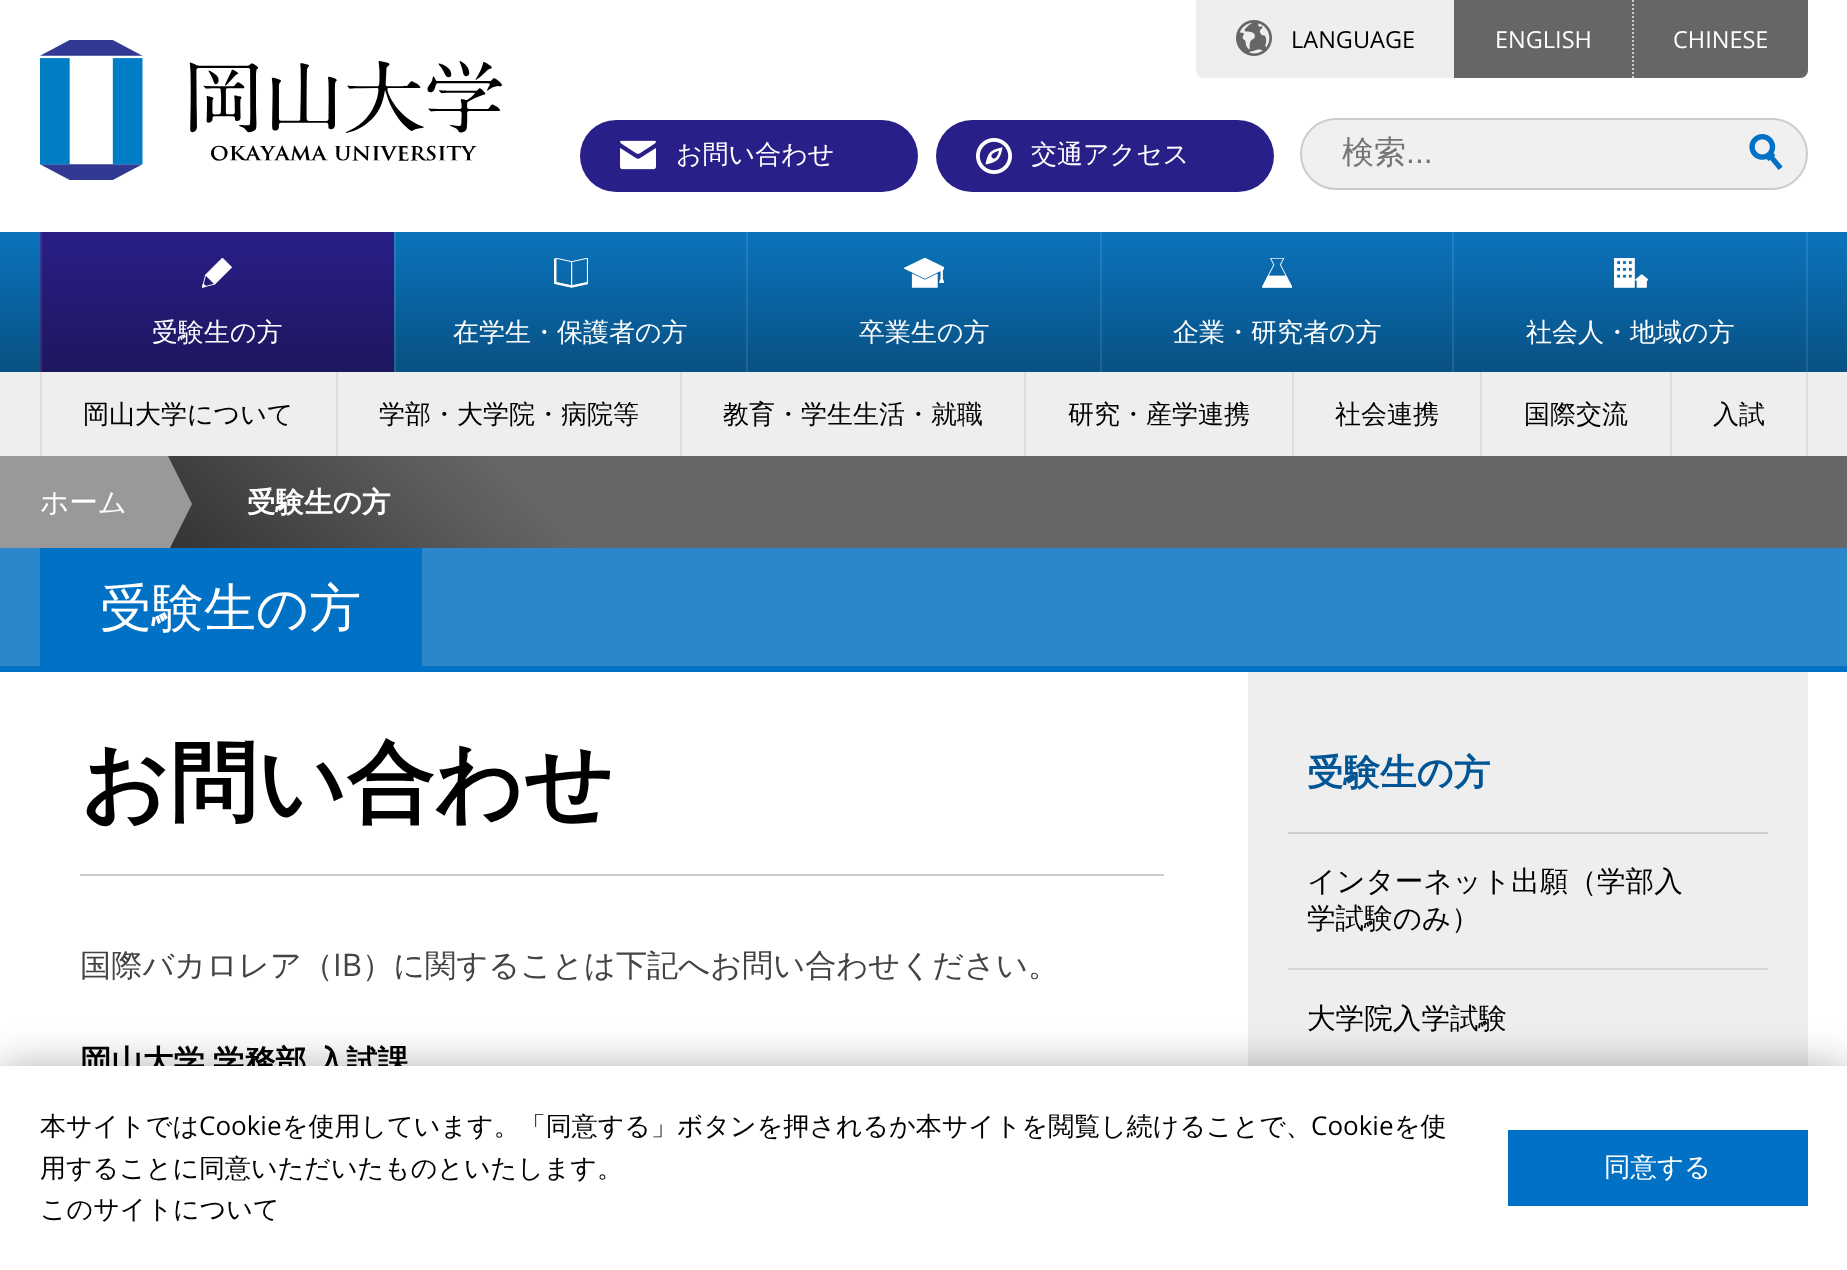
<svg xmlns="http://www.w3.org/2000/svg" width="1847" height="1270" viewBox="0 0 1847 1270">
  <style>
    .t1 { font: 23.5px Open Sans; fill: #000; }
    .t2 { font: 23.5px Open Sans; fill: #fff; }
    .t3 { font: 500 26px WenQuanYi Zen Hei; fill: #fff; }
    .t4 { font: 500 32px WenQuanYi Zen Hei; fill: #757575; }
    .t5 { font: 32px Liberation Sans; fill: #757575; }
    .t6 { font: 500 26px WenQuanYi Zen Hei; fill: #000; }
    .t7 { font: 500 28.6px WenQuanYi Zen Hei; fill: #fff; }
    .t8 { font: bold 28.6px WenQuanYi Zen Hei; fill: #fff; }
    .t9 { font: 500 52px WenQuanYi Zen Hei; fill: #fff; }
    .t10 { font: bold 87.5px WenQuanYi Zen Hei; fill: #000; }
    .t11 { font: 500 31.2px WenQuanYi Zen Hei; fill: #444; }
    .t12 { font: 31.2px Open Sans; fill: #444; }
    .t13 { font: bold 31.2px WenQuanYi Zen Hei; fill: #000; }
    .t14 { font: bold 36.5px WenQuanYi Zen Hei; fill: #005594; }
    .t15 { font: 500 28.6px WenQuanYi Zen Hei; fill: #000; }
    .t16 { font: 26px Open Sans; fill: #000; }
    .t17 { font: 500 26.5px WenQuanYi Zen Hei; fill: #fff; }
  </style>
  <defs>
    <linearGradient id="g1" gradientUnits="userSpaceOnUse" x1="924" y1="232" x2="924" y2="372"><stop offset="0" stop-color="#0b73bc"/><stop offset="1" stop-color="#085183"/></linearGradient>
    <linearGradient id="g2" gradientUnits="userSpaceOnUse" x1="218" y1="232" x2="218" y2="372"><stop offset="0" stop-color="#291f87"/><stop offset="1" stop-color="#1d165f"/></linearGradient>
    <linearGradient id="g3" gradientUnits="userSpaceOnUse" x1="218" y1="232" x2="218" y2="372"><stop offset="0" stop-color="#3e3593"/><stop offset="1" stop-color="#342d6f"/></linearGradient>
    <linearGradient id="g4" gradientUnits="userSpaceOnUse" x1="571" y1="232" x2="571" y2="372"><stop offset="0" stop-color="#2381c2"/><stop offset="1" stop-color="#21628f"/></linearGradient>
    <linearGradient id="g5" gradientUnits="userSpaceOnUse" x1="924" y1="232" x2="924" y2="372"><stop offset="0" stop-color="#2381c2"/><stop offset="1" stop-color="#21628f"/></linearGradient>
    <linearGradient id="g6" gradientUnits="userSpaceOnUse" x1="1277" y1="232" x2="1277" y2="372"><stop offset="0" stop-color="#2381c2"/><stop offset="1" stop-color="#21628f"/></linearGradient>
    <linearGradient id="g7" gradientUnits="userSpaceOnUse" x1="1630" y1="232" x2="1630" y2="372"><stop offset="0" stop-color="#2381c2"/><stop offset="1" stop-color="#21628f"/></linearGradient>
    <linearGradient id="g8" gradientUnits="userSpaceOnUse" x1="329" y1="713" x2="746" y2="296"><stop offset="0" stop-color="#333"/><stop offset="0.5" stop-color="#666"/></linearGradient>
    <clipPath id="clip1"><rect x="0" y="456" width="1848" height="92"/></clipPath>
  </defs>
  <rect width="100%" height="100%" fill="#fff"/>
  <image x="40" y="40" width="462" height="140" href="images/1.png"/>
  <path d="M1196 0H1808V70C1808 74.5 1804.5 78 1800 78H1204C1199.5 78 1196 74.5 1196 70Z" fill="#eee"/>
  <image x="1236" y="20" width="36" height="36" href="images/2.png"/>
  <text x="1291" y="48" class="t1">LANGUAGE</text>
  <rect x="1454" y="0" width="180" height="78" fill="#666"/>
  <path d="M1633 0V78" fill="none" stroke="#ccc" stroke-width="2" stroke-dasharray="2 2"/>
  <text x="1495" y="48" class="t2">ENGLISH</text>
  <path d="M1634 0H1808V70C1808 74.5 1804.5 78 1800 78H1634Z" fill="#666"/>
  <text x="1673" y="48" class="t2">CHINESE</text>
  <rect x="580" y="120" width="338" height="72" rx="36" fill="#291f88"/>
  <image x="620" y="140" width="36" height="30" href="images/3.png"/>
  <text x="676" y="163" class="t3">お問い合わせ</text>
  <rect x="936" y="120" width="338" height="72" rx="36" fill="#291f88"/>
  <image x="976" y="138" width="36" height="36" href="images/4.png"/>
  <text x="1031" y="163" class="t3">交通アクセス</text>
  <rect x="1301" y="119" width="506" height="70" rx="35" fill="#f0f0f0" stroke="#ccc" stroke-width="2"/>
  <text x="1342" y="163" class="t4">検索</text>
  <text x="1406" y="163" class="t5">...</text>
  <image x="1749" y="134" width="34" height="36" href="images/5.png"/>
  <rect x="0" y="232" width="1847" height="140" fill="url(#g1)"/>
  <rect x="42" y="232" width="352" height="140" fill="url(#g2)"/>
  <rect x="40" y="232" width="2" height="140" fill="url(#g3)"/>
  <image x="202" y="258" width="30" height="30" href="images/6.png"/>
  <text x="152" y="341" class="t3">受験生の方</text>
  <rect x="394" y="232" width="2" height="140" fill="url(#g4)"/>
  <image x="554" y="258" width="34" height="30" href="images/7.png"/>
  <text x="453" y="341" class="t3">在学生・保護者の方</text>
  <rect x="746" y="232" width="2" height="140" fill="url(#g5)"/>
  <image x="904" y="258" width="40" height="30" href="images/8.png"/>
  <text x="859" y="341" class="t3">卒業生の方</text>
  <rect x="1100" y="232" width="2" height="140" fill="url(#g6)"/>
  <image x="1262" y="258" width="30" height="30" href="images/9.png"/>
  <text x="1173" y="341" class="t3">企業・研究者の方</text>
  <rect x="1452" y="232" width="2" height="140" fill="url(#g7)"/>
  <rect x="1806" y="232" width="2" height="140" fill="url(#g7)"/>
  <image x="1614" y="258" width="34" height="30" href="images/10.png"/>
  <text x="1526" y="341" class="t3">社会人・地域の方</text>
  <rect x="0" y="372" width="1847" height="84" fill="#eee"/>
  <rect x="40" y="372" width="2" height="84" fill="#ddd"/>
  <text x="83" y="423" class="t6">岡山大学について</text>
  <rect x="336" y="372" width="2" height="84" fill="#ddd"/>
  <text x="379" y="423" class="t6">学部・大学院・病院等</text>
  <rect x="680" y="372" width="2" height="84" fill="#ddd"/>
  <text x="723" y="423" class="t6">教育・学生生活・就職</text>
  <rect x="1024" y="372" width="2" height="84" fill="#ddd"/>
  <text x="1068" y="423" class="t6">研究・産学連携</text>
  <rect x="1292" y="372" width="2" height="84" fill="#ddd"/>
  <text x="1335" y="423" class="t6">社会連携</text>
  <rect x="1480" y="372" width="2" height="84" fill="#ddd"/>
  <text x="1524" y="423" class="t6">国際交流</text>
  <rect x="1806" y="372" width="2" height="84" fill="#ddd"/>
  <rect x="1670" y="372" width="2" height="84" fill="#ddd"/>
  <text x="1713" y="423" class="t6">入試</text>
  <rect x="906" y="456" width="941" height="92" fill="#666"/>
  <rect x="0" y="456" width="168" height="92" fill="#999"/>
  <text x="40" y="512" class="t7">ホーム</text>
  <rect x="168" y="456" width="738" height="92" fill="url(#g8)"/>
  <g clip-path="url(#clip1)">
    <path d="M168 552V456L192 504Z" fill="#999"/>
  </g>
  <text x="247" y="512" class="t8">受験生の方</text>
  <rect x="0" y="666" width="1847" height="6" fill="#0071c5"/>
  <rect x="0" y="548" width="1847" height="118" fill="#2c86ca"/>
  <rect x="40" y="548" width="382" height="118" fill="#0071c5"/>
  <text x="100" y="626" class="t9">受験生の方</text>
  <rect x="80" y="874" width="1084" height="2" fill="#ccc"/>
  <text x="80" y="813" class="t10">お問い合わせ</text>
  <text x="80" y="976" class="t11">国際バカロレア（</text>
  <text x="333" y="976" class="t12">IB</text>
  <text x="362" y="976" class="t11">）に関することは下記へお問い合わせください。</text>
  <text x="80" y="1072" word-spacing="-1" class="t13">岡山大学 学務部 入試課</text>
  <rect x="1248" y="672" width="560" height="394" fill="#eee"/>
  <rect x="1288" y="832" width="480" height="2" fill="#ccc"/>
  <text x="1307" y="785" class="t14">受験生の方</text>
  <rect x="1288" y="968" width="480" height="2" fill="#d6d6d6"/>
  <text x="1307" y="891" class="t15">インターネット出願（学部入</text>
  <text x="1307" y="928" class="t15">学試験のみ）</text>
  <text x="1307" y="1028" class="t15">大学院入学試験</text>
  <rect x="0" y="1066" width="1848" height="204" fill="#0000004d" filter="blur(20px)"/>
  <rect x="0" y="1066" width="1847" height="204" fill="#fff"/>
  <text x="40" y="1135" class="t6">本サイトでは</text>
  <text x="199" y="1135" class="t16">Cookie</text>
  <text x="282" y="1135" class="t6">を使用しています。「同意する」ボタンを押されるか本サイトを閲覧し続けることで、</text>
  <text x="1311" y="1135" class="t16">Cookie</text>
  <text x="1394" y="1135" class="t6">を使</text>
  <text x="40" y="1177" class="t6">用することに同意いただいたものといたします。</text>
  <text x="40" y="1218" class="t6">このサイトについて</text>
  <rect x="1508" y="1130" width="300" height="76" fill="#0071c5"/>
  <text x="1604" y="1176" class="t17">同意する</text>
</svg>
